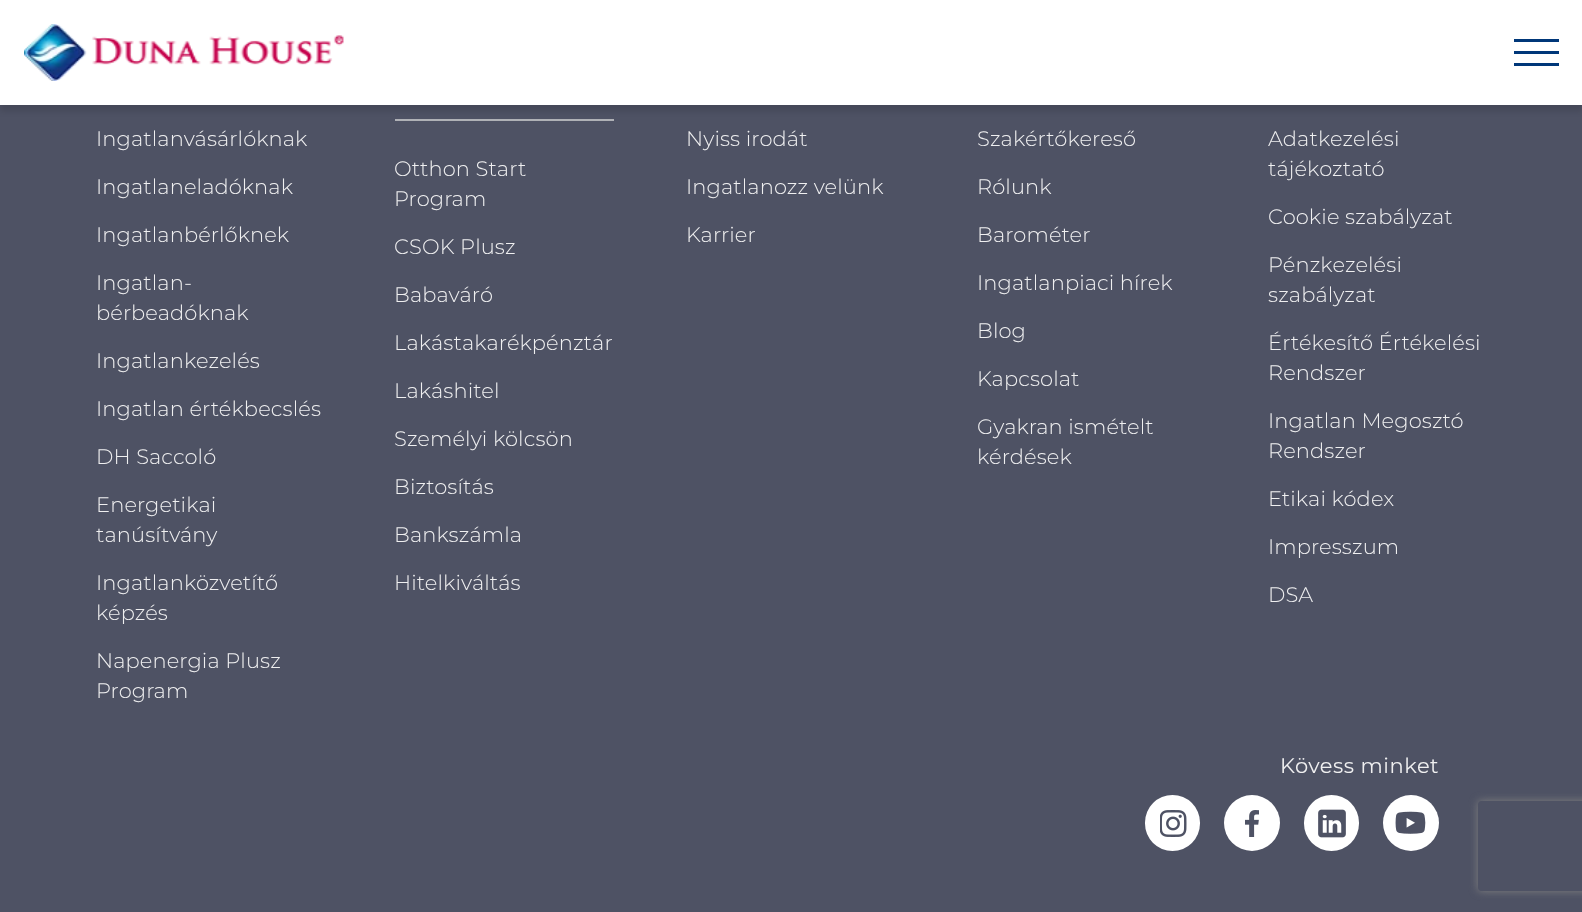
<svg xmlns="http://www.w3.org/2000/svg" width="1582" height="912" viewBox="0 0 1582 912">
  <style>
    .t1 { font: 300 21px Montserrat; letter-spacing: 0.1px; fill: #efeff0; }
    .t2 { font: 21px Montserrat; letter-spacing: 0.5px; fill: #efeff0; }
  </style>
  <defs>
    <clipPath id="clip1"><path d="M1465 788H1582V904H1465ZM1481 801H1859C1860.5 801 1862 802.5 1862 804V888C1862 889.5 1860.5 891 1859 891H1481C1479.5 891 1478 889.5 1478 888V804C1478 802.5 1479.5 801 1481 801Z" clip-rule="evenodd"/></clipPath>
  </defs>
  <rect width="100%" height="100%" fill="#4e5264"/>
  <rect x="395" y="119" width="219" height="2" fill="#afb1b6"/>
  <rect x="0" y="6" width="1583" height="105" fill="#0000001f" filter="blur(3px)"/>
  <rect x="0" y="0" width="1582" height="105" fill="#fff"/>
  <image x="24" y="24" width="320" height="57" href="images/1.png"/>
  <rect x="1514" y="39" width="45" height="3" fill="#003779"/>
  <rect x="1514" y="51" width="45" height="3" fill="#003779"/>
  <rect x="1514" y="63" width="45" height="3" fill="#003779"/>
  <text x="96" y="146" class="t1">Ingatlanvásárlóknak</text>
  <text x="96" y="194" class="t1">Ingatlaneladóknak</text>
  <text x="96" y="242" class="t1">Ingatlanbérlőknek</text>
  <text x="96" y="290" class="t1">Ingatlan-</text>
  <text x="96" y="320" class="t1">bérbeadóknak</text>
  <text x="96" y="368" class="t1">Ingatlankezelés</text>
  <text x="96" y="416" class="t1">Ingatlan értékbecslés</text>
  <text x="96" y="464" class="t1">DH Saccoló</text>
  <text x="96" y="512" class="t1">Energetikai</text>
  <text x="96" y="542" class="t1">tanúsítvány</text>
  <text x="96" y="590" class="t1">Ingatlanközvetítő</text>
  <text x="96" y="620" class="t1">képzés</text>
  <text x="96" y="668" class="t1">Napenergia Plusz</text>
  <text x="96" y="698" class="t1">Program</text>
  <text x="394" y="176" class="t1">Otthon Start</text>
  <text x="394" y="206" class="t1">Program</text>
  <text x="394" y="254" class="t1">CSOK Plusz</text>
  <text x="394" y="302" class="t1">Babaváró</text>
  <text x="394" y="350" class="t1">Lakástakarékpénztár</text>
  <text x="394" y="398" class="t1">Lakáshitel</text>
  <text x="394" y="446" class="t1">Személyi kölcsön</text>
  <text x="394" y="494" class="t1">Biztosítás</text>
  <text x="394" y="542" class="t1">Bankszámla</text>
  <text x="394" y="590" class="t1">Hitelkiváltás</text>
  <text x="686" y="146" class="t1">Nyiss irodát</text>
  <text x="686" y="194" class="t1">Ingatlanozz velünk</text>
  <text x="686" y="242" class="t1">Karrier</text>
  <text x="977" y="146" class="t1">Szakértőkereső</text>
  <text x="977" y="194" class="t1">Rólunk</text>
  <text x="977" y="242" class="t1">Barométer</text>
  <text x="977" y="290" class="t1">Ingatlanpiaci hírek</text>
  <text x="977" y="338" class="t1">Blog</text>
  <text x="977" y="386" class="t1">Kapcsolat</text>
  <text x="977" y="434" class="t1">Gyakran ismételt</text>
  <text x="977" y="464" class="t1">kérdések</text>
  <text x="1268" y="146" class="t1">Adatkezelési</text>
  <text x="1268" y="176" class="t1">tájékoztató</text>
  <text x="1268" y="224" class="t1">Cookie szabályzat</text>
  <text x="1268" y="272" class="t1">Pénzkezelési</text>
  <text x="1268" y="302" class="t1">szabályzat</text>
  <text x="1268" y="350" class="t1">Értékesítő Értékelési</text>
  <text x="1268" y="380" class="t1">Rendszer</text>
  <text x="1268" y="428" class="t1">Ingatlan Megosztó</text>
  <text x="1268" y="458" class="t1">Rendszer</text>
  <text x="1268" y="506" class="t1">Etikai kódex</text>
  <text x="1268" y="554" class="t1">Impresszum</text>
  <text x="1268" y="602" class="t1">DSA</text>
  <text x="1280" y="773" class="t2">Kövess minket</text>
  <rect x="1145" y="795" width="55" height="56" rx="27.5" fill="#fff"/>
  <image x="1160" y="810" width="27" height="27" href="images/2.png"/>
  <circle cx="1252" cy="823" r="28" fill="#fff"/>
  <image x="1245" y="810" width="14" height="27" href="images/3.png"/>
  <rect x="1304" y="795" width="55" height="56" rx="27.5" fill="#fff"/>
  <image x="1318" y="809" width="28" height="29" href="images/4.png"/>
  <circle cx="1411" cy="823" r="28" fill="#fff"/>
  <image x="1395" y="811" width="31" height="23" href="images/5.png"/>
  <g clip-path="url(#clip1)">
    <rect x="1478" y="801" width="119" height="90" rx="3" fill="#808080" filter="blur(4px)"/>
  </g>
</svg>
